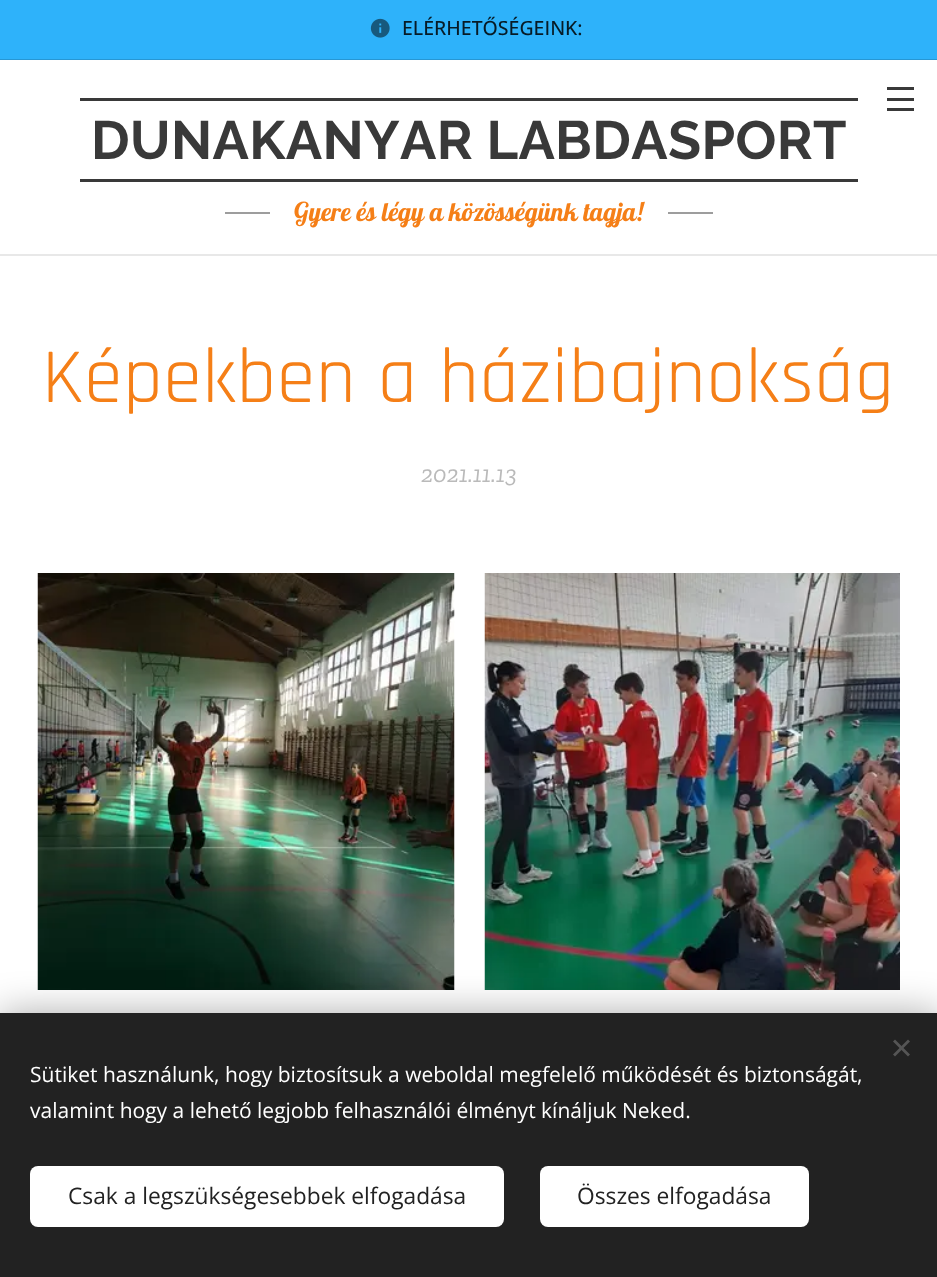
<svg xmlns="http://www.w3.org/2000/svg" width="937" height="1277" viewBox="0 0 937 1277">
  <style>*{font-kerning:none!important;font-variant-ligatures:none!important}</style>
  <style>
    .t1 { font: 500 19.5px Open Sans; fill: #071b26; }
    .t2 { font: bold 54px Raleway; letter-spacing: 0.4px; fill: #393939; }
    .t3 { font: 25.75px Lobster; fill: #f57f17; }
    .t4 { font: 78px Rajdhani; letter-spacing: 0.75px; fill: #f57f17; }
    .t5 { font: italic 24px Zilla Slab; fill: #bababa; }
    .t6 { font: 21px Open Sans; fill: #fff; }
    .t7 { font: 22.75px Open Sans; fill: #222; }
  </style>
  <rect width="100%" height="100%" fill="#fff"/>
  <rect x="0" y="0" width="937" height="60" fill="#2eb2fa"/>
  <image x="370" y="18" width="20" height="20" href="images/1.png"/>
  <text x="402" y="35" class="t1">ELÉRHETŐSÉGEINK:</text>
  <rect x="0" y="59" width="937" height="1" fill="#00000026"/>
  <rect x="887" y="98" width="27" height="3" fill="#393939"/>
  <rect x="887" y="87" width="27" height="3" fill="#393939"/>
  <rect x="887" y="108" width="27" height="3" fill="#393939"/>
  <rect x="80" y="98" width="778" height="3" fill="#393939"/>
  <rect x="80" y="179" width="778" height="3" fill="#393939"/>
  <text x="91" y="159" class="t2">DUNAKANYAR LABDASPORT</text>
  <rect x="225" y="212" width="45" height="2" fill="#9d9d9d"/>
  <text x="294" y="221" class="t3">Gyere és légy a</text>
  <text x="449" y="221" class="t3">közösségünk tagja!</text>
  <rect x="668" y="212" width="45" height="2" fill="#9d9d9d"/>
  <rect x="0" y="254" width="937" height="2" fill="#e8e8e8"/>
  <text x="42" y="402" class="t4">Képekben a házibajnokság</text>
  <text x="421" y="482" class="t5">2021.11.13</text>
  <image x="37" y="573" width="418" height="417" href="images/2.png"/>
  <image x="484" y="573" width="416" height="417" href="images/3.png"/>
  <rect x="0" y="1013" width="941" height="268" fill="#00000054" filter="blur(19px)"/>
  <rect x="0" y="1013" width="937" height="264" fill="#222"/>
  <path d="M893 1054.5L908 1039.5L910 1041.5L895 1056.5Z" fill="#555"/>
  <path d="M895 1039.5L910 1054.5L908 1056.5L893 1041.5Z" fill="#555"/>
  <text x="30" y="1082" class="t6">Sütiket használunk, hogy biztosítsuk a weboldal megfelelő működését és biztonságát,</text>
  <text x="30" y="1118" class="t6">valamint hogy a lehető legjobb felhasználói élményt kínáljuk Neked.</text>
  <rect x="30" y="1166" width="474" height="61" rx="8" fill="#fff"/>
  <text x="68" y="1204" class="t7">Csak a legszükségesebbek elfogadása</text>
  <rect x="540" y="1166" width="269" height="61" rx="8" fill="#fff"/>
  <text x="577" y="1204" class="t7">Összes elfogadása</text>
</svg>
